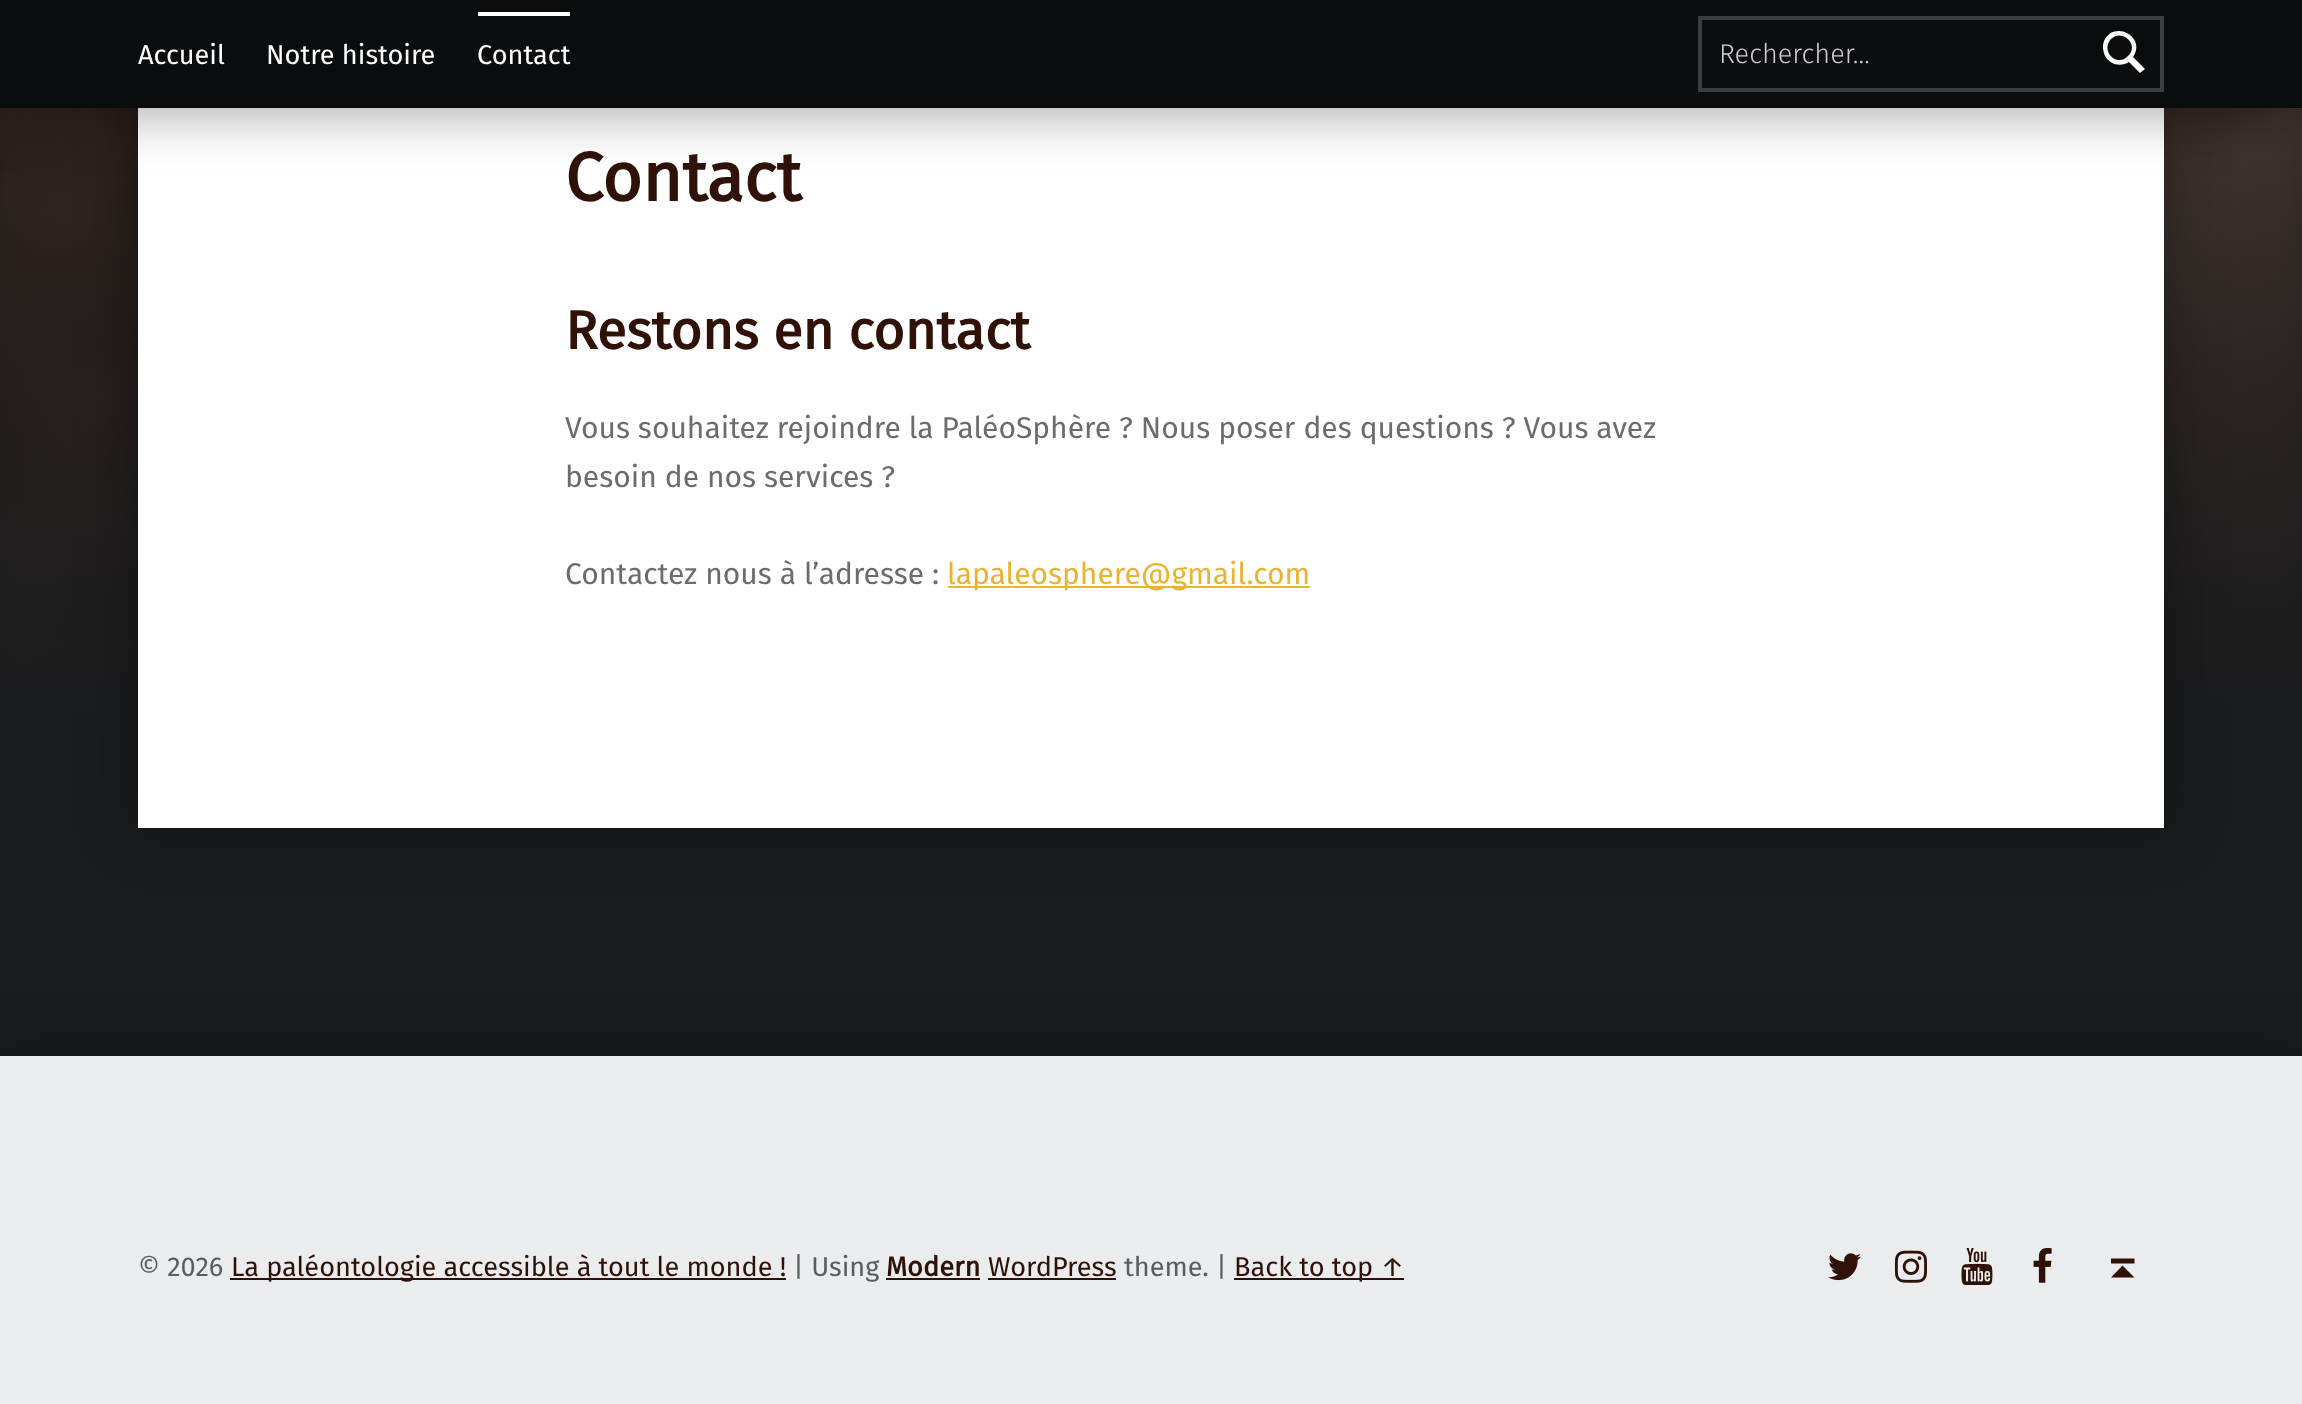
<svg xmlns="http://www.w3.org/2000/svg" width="2302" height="1404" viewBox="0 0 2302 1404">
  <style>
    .t1 { font: 27.15px Fira Sans; fill: #fff; }
    .t2 { font: 300 27.15px Fira Sans; fill: #cececf; }
    .t3 { font: bold 68.5px Fira Sans; fill: #2f1107; }
    .t4 { font: bold 54px Fira Sans; fill: #2f1107; }
    .t5 { font: 30px Fira Sans; fill: #6a6c6e; }
    .t6 { font: 30px Fira Sans; fill: #ecb332; }
    .t7 { font: 27.15px Fira Sans; fill: #5a5c5e; }
    .t8 { font: 27.15px Fira Sans; fill: #2f1107; }
    .t9 { font: bold 27.15px Fira Sans; fill: #2f1107; }
  </style>
  <defs>
    <linearGradient id="g1" gradientUnits="userSpaceOnUse" x1="1151" y1="-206" x2="1151" y2="738"><stop offset="0" stop-color="#1a1c1e" stop-opacity="0"/><stop offset="1" stop-color="#1a1c1e"/></linearGradient>
  </defs>
  <rect width="100%" height="100%" fill="#1a1c1e"/>
  <image x="0" y="108" width="2302" height="624" href="images/1.png"/>
  <rect x="0" y="108" width="2302" height="624" fill="url(#g1)"/>
  <rect x="138" y="-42" width="2026" height="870" fill="#00000066" filter="blur(30px)"/>
  <rect x="138" y="108" width="2026" height="720" fill="#fff"/>
  <rect x="0" y="0" width="2302" height="108" fill="#00000066" filter="blur(30px)"/>
  <rect x="0" y="0" width="2302" height="108" fill="#0a0c0e"/>
  <text x="138" y="64" class="t1">Accueil</text>
  <text x="266" y="64" class="t1">Notre histoire</text>
  <rect x="478" y="12" width="92" height="4" fill="#fff"/>
  <text x="477" y="64" class="t1">Contact</text>
  <rect x="1700" y="18" width="462" height="72" fill="none" stroke="#3b3d3e" stroke-width="4"/>
  <text x="1719" y="63" class="t2">Rechercher…</text>
  <path d="M2145 69L2140 73L2129 62C2121 67 2110 65 2105 56C2103 51 2102 46 2104 41C2114 19 2147 37 2133 57ZM2111 39C2100 51 2117 68 2128 56C2140 45 2122 28 2111 39Z" fill="#fff"/>
  <text x="565" y="201" class="t3">Contact</text>
  <text x="565" y="349" class="t4">Restons en contact</text>
  <text x="565" y="438" class="t5">Vous souhaitez rejoindre la PaléoSphère ? Nous poser des questions ? Vous avez</text>
  <text x="565" y="487" class="t5">besoin de nos services ?</text>
  <text x="565" y="584" class="t5">Contactez nous à l’adresse :</text>
  <rect x="948" y="586" width="362" height="2" fill="#ecb332"/>
  <text x="947" y="584" class="t6">lapaleosphere@gmail.com</text>
  <rect x="0" y="1056" width="2302" height="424" fill="#00000066" filter="blur(30px)"/>
  <rect x="0" y="1056" width="2302" height="348" fill="#eaecee"/>
  <text x="138" y="1276" class="t7">© 2026</text>
  <rect x="230" y="1278" width="556" height="2" fill="#2f1107"/>
  <text x="231" y="1276" class="t8">La paléontologie accessible à tout le monde !</text>
  <text x="793" y="1276" class="t7">| Using</text>
  <text x="886" y="1276" class="t9">Modern</text>
  <rect x="886" y="1278" width="94" height="2" fill="#2f1107"/>
  <text x="988" y="1276" class="t8">WordPress</text>
  <rect x="988" y="1278" width="128" height="2" fill="#2f1107"/>
  <text x="1124" y="1276" class="t7">theme. |</text>
  <rect x="1234" y="1278" width="170" height="2" fill="#2f1107"/>
  <text x="1234" y="1276" class="t8">Back to top ↑</text>
  <image x="1828" y="1253" width="33" height="28" href="images/2.png"/>
  <image x="1894" y="1250" width="33" height="33" href="images/3.png"/>
  <image x="1961" y="1248" width="32" height="37" href="images/4.png"/>
  <image x="2033" y="1248" width="19" height="35" href="images/5.png"/>
  <path d="M2111 1277.5L2122.5 1265.5L2134.5 1277.5ZM2111 1258.5H2134.5V1263.5H2111Z" fill="#2f1107"/>
</svg>
